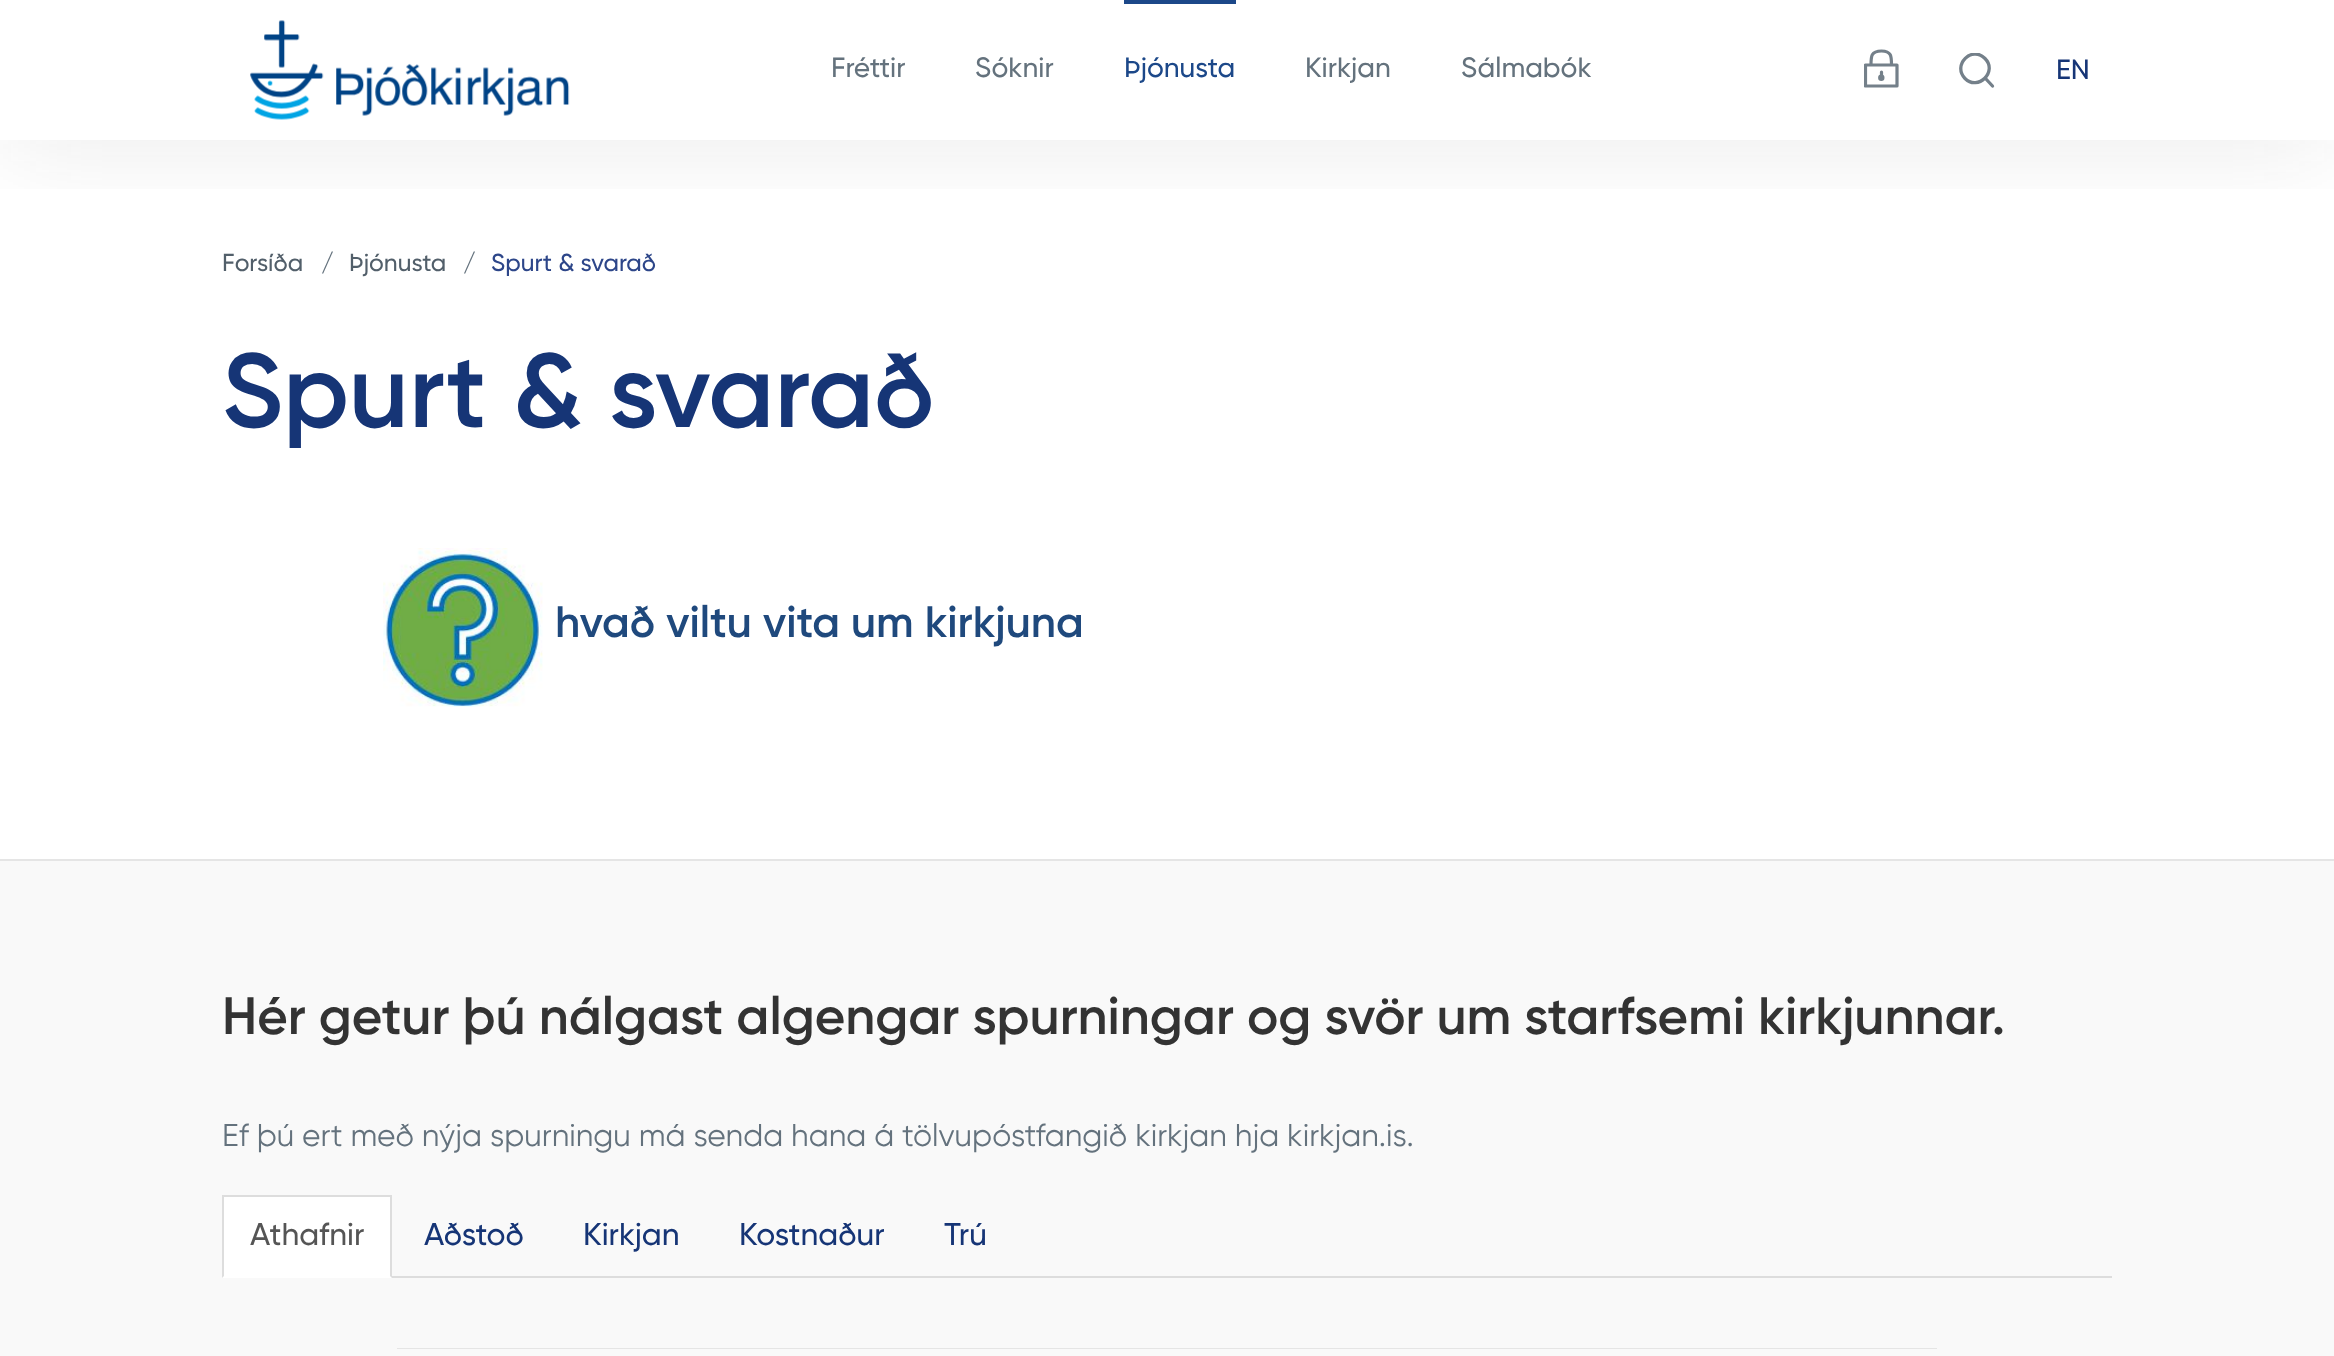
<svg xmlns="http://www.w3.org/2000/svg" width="2334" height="1356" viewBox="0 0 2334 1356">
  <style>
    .t1 { font: 500 28px Gilroy; fill: #64727d; }
    .t2 { font: 500 28px Gilroy; fill: #1c4889; }
    .t3 { font: 500 28px Gilroy; fill: #163576; }
    .t4 { font: 500 24.5px Gilroy; fill: #525f6a; }
    .t5 { font: 500 24.5px Gilroy; fill: #64727d; }
    .t6 { font: 500 24.5px Gilroy; fill: #2d4689; }
    .t7 { font: 600 105px Gilroy; fill: #163576; }
    .t8 { font: 600 44.1px Gilroy; fill: #1f497d; }
    .t9 { font: 600 52.5px Gilroy; fill: #333; }
    .t10 { font: 31.5px Gilroy; fill: #64727d; }
    .t11 { font: 500 31.5px Gilroy; fill: #555; }
    .t12 { font: 500 31.5px Gilroy; fill: #163576; }
  </style>
  <defs>
    <clipPath id="clip1"><rect x="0" y="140" width="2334" height="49"/></clipPath>
    <clipPath id="clip2"><rect x="1864" y="49" width="35" height="39"/></clipPath>
    <clipPath id="clip3"><rect x="1958" y="53" width="37" height="35"/></clipPath>
  </defs>
  <rect width="100%" height="100%" fill="#f9f9f9"/>
  <rect x="0" y="0" width="2334" height="859" fill="#fff"/>
  <g clip-path="url(#clip1)">
    <rect x="0" y="4" width="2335" height="140" fill="#373b3b1a" filter="blur(53.5px)"/>
  </g>
  <image x="250" y="20" width="320" height="100" href="images/1.png"/>
  <text x="831" y="77" class="t1">Fréttir</text>
  <text x="975" y="77" class="t1">Sóknir</text>
  <rect x="1124" y="0" width="112" height="4" fill="#1c4889"/>
  <text x="1124" y="77" class="t2">Þjónusta</text>
  <text x="1305" y="77" class="t1">Kirkjan</text>
  <text x="1461" y="77" class="t1">Sálmabók</text>
  <g clip-path="url(#clip2)">
    <path d="M1865.5 65V86H1897V65ZM1871 65C1871 56.5 1871 51 1881.5 51C1891.5 51 1891.5 56.5 1891.5 65ZM1881.5 72V76Z" fill="none" stroke="#74808a" stroke-width="3.2" stroke-linecap="round" stroke-linejoin="round"/>
  </g>
  <circle cx="1881.3" cy="77.8" r="1.6" fill="none" stroke="#74808a" stroke-width="3.2"/>
  <g clip-path="url(#clip3)">
    <path d="M1985 58.5C1998 71.5 1978 91.5 1965 78.5C1952 65 1972 45 1985 58.5Z" fill="none" stroke="#74808a" stroke-width="3.3"/>
  </g>
  <path d="M1992.5 86L1986 79" fill="none" stroke="#74808a" stroke-width="3.3" stroke-linecap="round"/>
  <text x="2056" y="79" class="t3">EN</text>
  <rect x="0" y="859" width="2334" height="2" fill="#e5e5e5"/>
  <text x="222" y="271" class="t4">Forsíða</text>
  <text x="321" y="271" class="t5">/</text>
  <text x="349" y="271" class="t4">Þjónusta</text>
  <text x="463" y="271" class="t5">/</text>
  <text x="491" y="271" class="t6">Spurt &amp; svarað</text>
  <text x="222" y="427" class="t7">Spurt &amp; svarað</text>
  <image x="383" y="548" width="160" height="159" href="images/2.png"/>
  <text x="555" y="637" class="t8">hvað viltu vita um kirkjuna</text>
  <text x="222" y="1034" class="t9">Hér getur þú nálgast algengar spurningar og svör um starfsemi kirkjunnar.</text>
  <text x="222" y="1146" class="t10">Ef þú ert með nýja spurningu má senda hana á tölvupóstfangið kirkjan hja kirkjan.is.</text>
  <rect x="392" y="1276" width="1720" height="2" fill="#ddd"/>
  <rect x="222" y="1197" width="170" height="81" fill="#fff"/>
  <rect x="222" y="1195" width="170" height="2" fill="#ddd"/>
  <path d="M392 1195V1278L390 1276V1197Z" fill="#ddd"/>
  <path d="M222 1278V1195L224 1197V1276Z" fill="#ddd"/>
  <text x="250" y="1245" class="t11">Athafnir</text>
  <text x="424" y="1245" class="t12">Aðstoð</text>
  <text x="583" y="1245" class="t12">Kirkjan</text>
  <text x="739" y="1245" class="t12">Kostnaður</text>
  <text x="944" y="1245" class="t12">Trú</text>
  <rect x="397" y="1348" width="1540" height="1" fill="#e5e5e5"/>
</svg>
